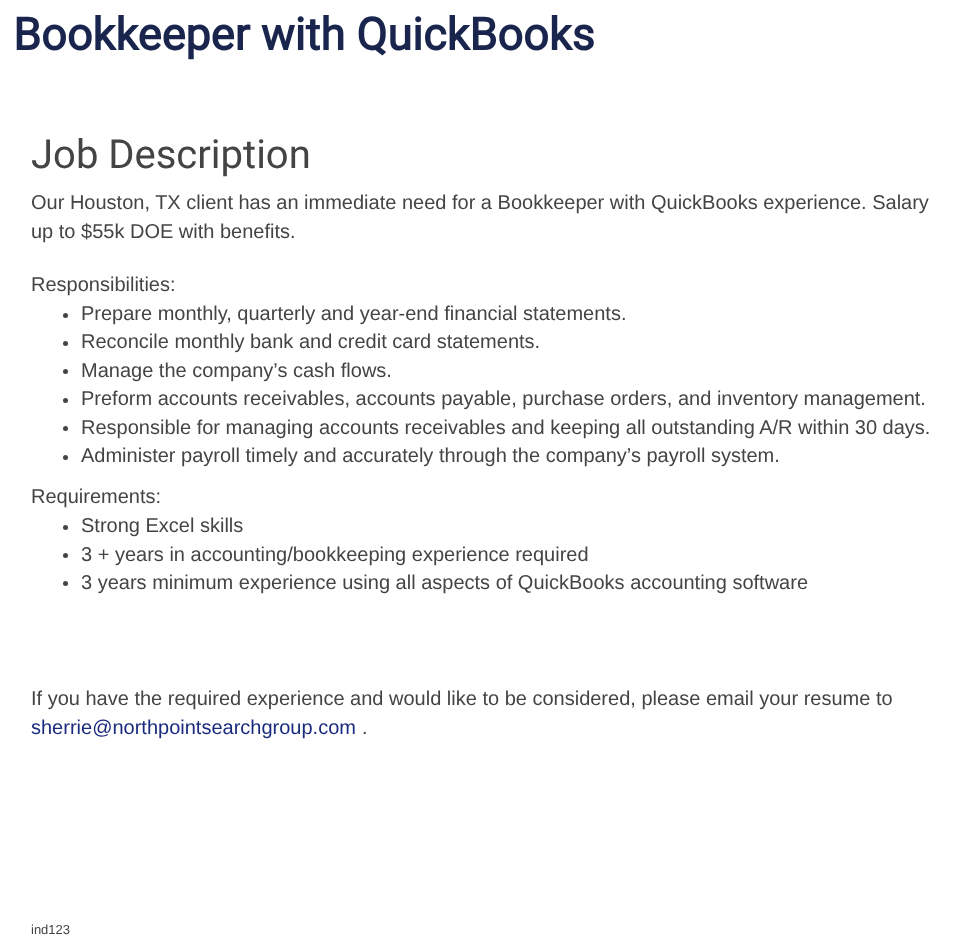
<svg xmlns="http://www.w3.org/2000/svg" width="966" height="952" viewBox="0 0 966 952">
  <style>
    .t1 { font: bold 45px Roboto; fill: #19254c; }
    .t2 { font: 40px Roboto; fill: #444; }
    .t3 { font: 20px Liberation Sans; fill: #444; }
    .t4 { font: 20px Liberation Sans; fill: #1a2b7d; }
    .t5 { font: 13px Liberation Sans; fill: #444; }
  </style>
  <rect width="100%" height="100%" fill="#fff"/>
  <text x="13" y="50" class="t1">Bookkeeper with QuickBooks</text>
  <text x="31" y="168" class="t2">Job Description</text>
  <text x="31" y="209" class="t3">Our Houston, TX client has an immediate need for a Bookkeeper with QuickBooks experience. Salary</text>
  <text x="31" y="238" class="t3">up to $55k DOE with benefits.</text>
  <text x="31" y="291" class="t3">Responsibilities:</text>
  <circle cx="65.5" cy="315.5" r="2.5" fill="#444"/>
  <text x="81" y="320" class="t3">Prepare monthly, quarterly and year-end financial statements.</text>
  <circle cx="65.5" cy="343.5" r="2.5" fill="#444"/>
  <text x="81" y="348" class="t3">Reconcile monthly bank and credit card statements.</text>
  <circle cx="65.5" cy="371.5" r="2.5" fill="#444"/>
  <text x="81" y="377" class="t3">Manage the company’s cash flows.</text>
  <circle cx="65.5" cy="400.5" r="2.5" fill="#444"/>
  <text x="81" y="405" class="t3">Preform accounts receivables, accounts payable, purchase orders, and inventory management.</text>
  <circle cx="65.5" cy="428.5" r="2.5" fill="#444"/>
  <text x="81" y="434" class="t3">Responsible for managing accounts receivables and keeping all outstanding A/R within 30 days.</text>
  <circle cx="65.5" cy="457.5" r="2.5" fill="#444"/>
  <text x="81" y="462" class="t3">Administer payroll timely and accurately through the company’s payroll system.</text>
  <text x="31" y="503" class="t3">Requirements:</text>
  <circle cx="65.5" cy="527.5" r="2.5" fill="#444"/>
  <text x="81" y="532" class="t3">Strong Excel skills</text>
  <circle cx="65.5" cy="555.5" r="2.5" fill="#444"/>
  <text x="81" y="561" class="t3">3 + years in accounting/bookkeeping experience required</text>
  <circle cx="65.5" cy="583.5" r="2.5" fill="#444"/>
  <text x="81" y="589" class="t3">3 years minimum experience using all aspects of QuickBooks accounting software</text>
  <text x="31" y="705" class="t3">If you have the required experience and would like to be considered, please email your resume to</text>
  <text x="31" y="734" class="t4">sherrie@northpointsearchgroup.com</text>
  <text x="362" y="734" class="t3">.</text>
  <text x="31" y="934" class="t5">ind123</text>
</svg>
